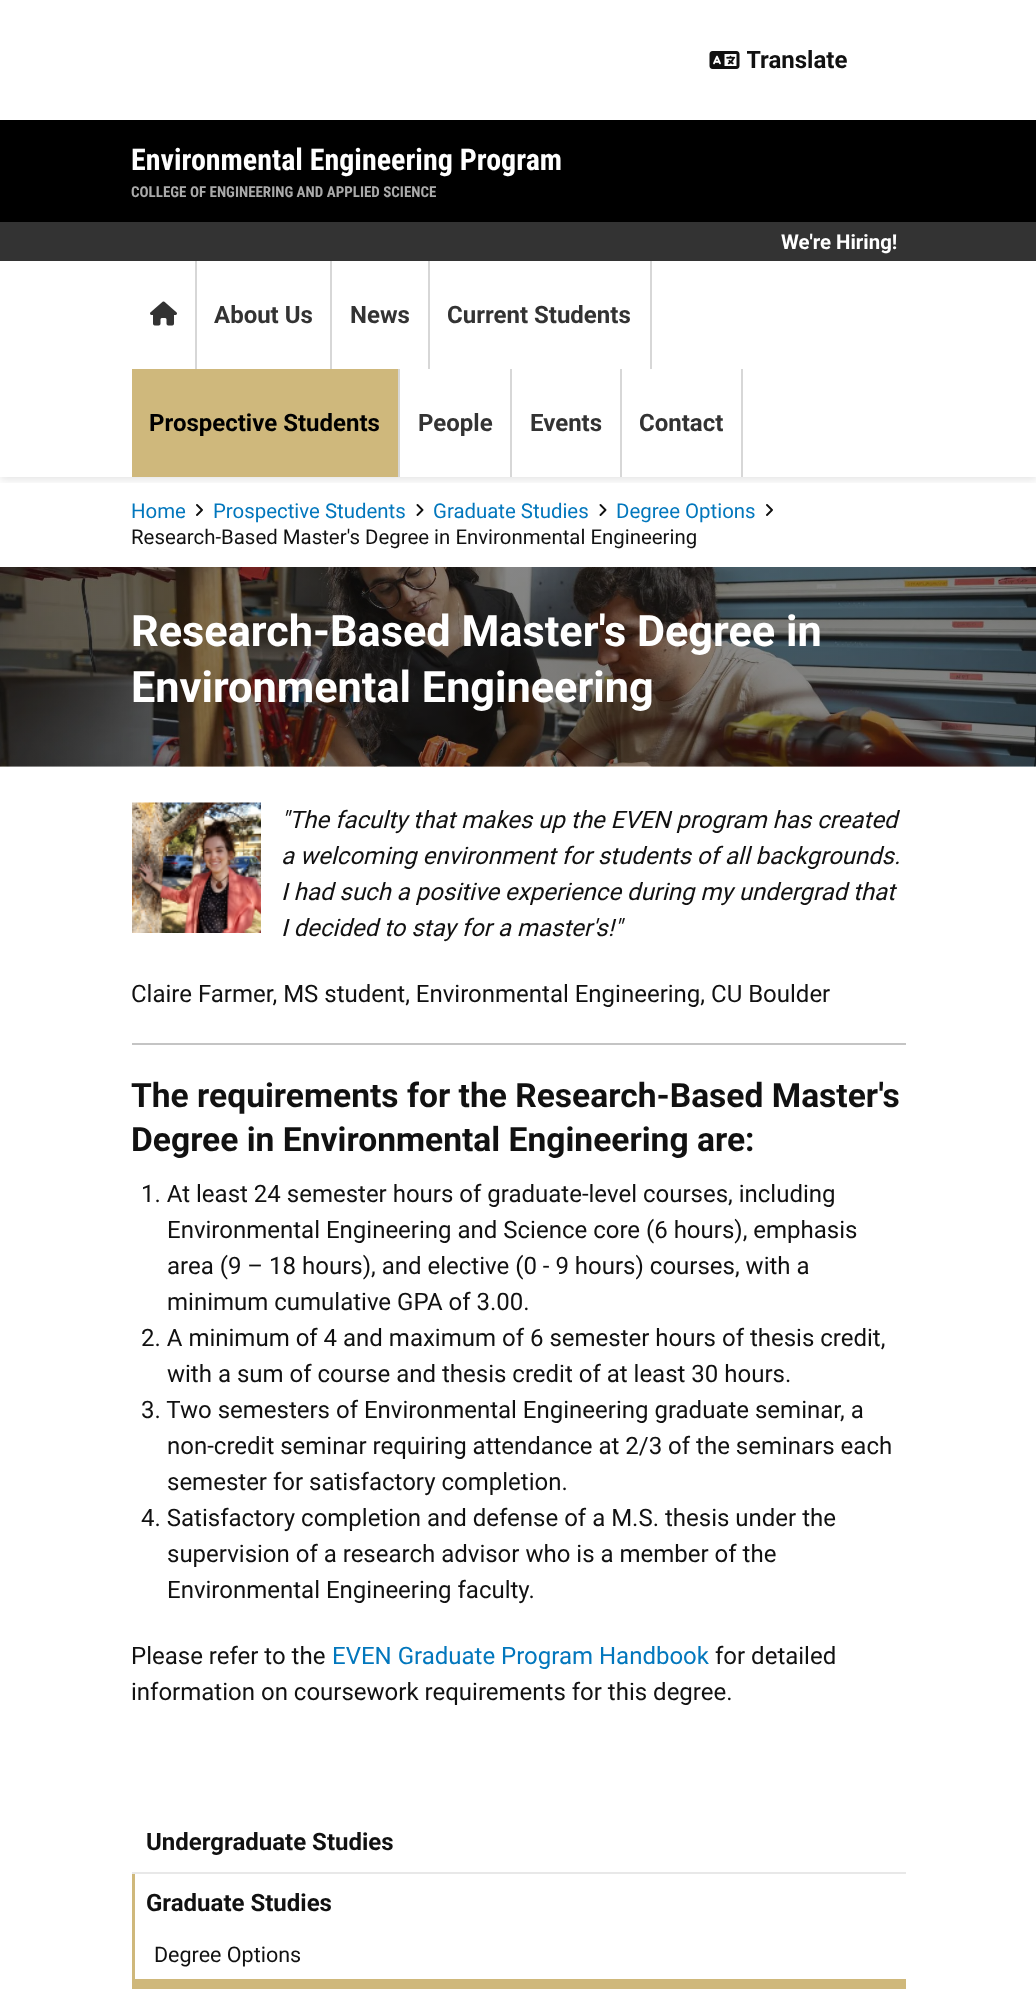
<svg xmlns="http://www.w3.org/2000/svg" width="1036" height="1989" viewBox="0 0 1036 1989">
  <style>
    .t1 { font: bold 24px Roboto; fill: #111; }
    .t2 { font: bold 30px Roboto Condensed; fill: #fff; }
    .t3 { font: bold 15px Roboto Condensed; fill: #aaa; }
    .t4 { font: bold 20.4px Roboto; fill: #fff; }
    .t5 { font: bold 24px Roboto; fill: #333; }
    .t6 { font: bold 24px Roboto; fill: #000; }
    .t7 { font: 20.4px Roboto; fill: #0277bd; }
    .t8 { font: 20.4px Roboto; fill: #111; }
    .t9 { font: bold 43.25px Roboto; fill: #fff; }
    .t10 { font: italic 24px Roboto; fill: #111; }
    .t11 { font: 24px Roboto; fill: #111; }
    .t12 { font: bold 33.6px Roboto; fill: #111; }
    .t13 { font: 24px Roboto; fill: #0277bd; }
    .t14 { font: 21.5px Roboto; fill: #111; }
  </style>
  <defs>
    <clipPath id="clip1"><rect x="747" y="42" width="105" height="36"/></clipPath>
    <clipPath id="clip2"><rect x="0" y="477" width="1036" height="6"/></clipPath>
  </defs>
  <rect width="100%" height="100%" fill="#fff"/>
  <image x="709" y="51" width="31" height="18" href="images/1.png"/>
  <g clip-path="url(#clip1)">
    <text x="746" y="68" class="t1">Translate</text>
  </g>
  <g clip-path="url(#clip2)">
    <rect x="0" y="225" width="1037" height="255" fill="#0000001a" filter="blur(4px)"/>
  </g>
  <rect x="0" y="120" width="1036" height="102" fill="#000"/>
  <text x="131" y="170" class="t2">Environmental Engineering Program</text>
  <text x="131" y="197" class="t3">COLLEGE OF ENGINEERING AND APPLIED SCIENCE</text>
  <rect x="0" y="222" width="1036" height="39" fill="#333"/>
  <text x="781" y="249" class="t4">We're Hiring!</text>
  <rect x="195" y="261" width="2" height="108" fill="#d7d7d7"/>
  <image x="150" y="301" width="27" height="25" href="images/2.png"/>
  <rect x="330" y="261" width="2" height="108" fill="#d7d7d7"/>
  <text x="214" y="323" class="t5">About Us</text>
  <rect x="428" y="261" width="2" height="108" fill="#d7d7d7"/>
  <text x="350" y="323" class="t5">News</text>
  <rect x="650" y="261" width="2" height="108" fill="#d7d7d7"/>
  <text x="447" y="323" class="t5">Current Students</text>
  <rect x="132" y="369" width="266" height="108" fill="#cfb87c"/>
  <rect x="398" y="369" width="2" height="108" fill="#d7d7d7"/>
  <text x="149" y="431" class="t6">Prospective Students</text>
  <rect x="510" y="369" width="2" height="108" fill="#d7d7d7"/>
  <text x="418" y="431" class="t5">People</text>
  <rect x="620" y="369" width="2" height="108" fill="#d7d7d7"/>
  <text x="530" y="431" class="t5">Events</text>
  <rect x="741" y="369" width="2" height="108" fill="#d7d7d7"/>
  <text x="639" y="431" class="t5">Contact</text>
  <text x="131" y="518" class="t7">Home</text>
  <path d="M197 515L202 510L197 505" fill="none" stroke="#111" stroke-width="1.9" stroke-linecap="round" stroke-linejoin="round"/>
  <text x="213" y="518" class="t7">Prospective Students</text>
  <path d="M417.5 515L422.5 510L417.5 505" fill="none" stroke="#111" stroke-width="1.9" stroke-linecap="round" stroke-linejoin="round"/>
  <text x="433" y="518" class="t7">Graduate Studies</text>
  <path d="M600.5 515L605.5 510L600.5 505" fill="none" stroke="#111" stroke-width="1.9" stroke-linecap="round" stroke-linejoin="round"/>
  <text x="616" y="518" class="t7">Degree Options</text>
  <path d="M767 515L772 510L767 505" fill="none" stroke="#111" stroke-width="1.9" stroke-linecap="round" stroke-linejoin="round"/>
  <text x="131" y="544" class="t8">Research-Based Master's Degree in Environmental Engineering</text>
  <image x="0" y="567" width="1036" height="200" href="images/3.png"/>
  <text x="131" y="646" class="t9">Research-Based Master's Degree in</text>
  <text x="131" y="702" class="t9">Environmental Engineering</text>
  <image x="132" y="802" width="129" height="131" href="images/4.png"/>
  <text x="281" y="828" class="t10">"The faculty that makes up the EVEN program has created</text>
  <text x="281" y="864" class="t10">a welcoming environment for students of all backgrounds.</text>
  <text x="281" y="900" class="t10">I had such a positive experience during my undergrad that</text>
  <text x="281" y="936" class="t10">I decided to stay for a master's!"</text>
  <text x="131" y="1002" class="t11">Claire Farmer, MS student, Environmental Engineering, CU Boulder</text>
  <rect x="132" y="1043" width="774" height="2" fill="#c4c4c4"/>
  <text x="131" y="1107" class="t12">The requirements for the Research-Based Master's</text>
  <text x="131" y="1151" class="t12">Degree in Environmental Engineering are:</text>
  <text x="141" y="1202" class="t11">1. At least 24 semester hours of graduate-level courses, including</text>
  <text x="167" y="1238" class="t11">Environmental Engineering and Science core (6 hours), emphasis</text>
  <text x="167" y="1274" class="t11">area (9 – 18 hours), and elective (0 - 9 hours) courses, with a</text>
  <text x="167" y="1310" class="t11">minimum cumulative GPA of 3.00.</text>
  <text x="141" y="1346" class="t11">2. A minimum of 4 and maximum of 6 semester hours of thesis credit,</text>
  <text x="167" y="1382" class="t11">with a sum of course and thesis credit of at least 30 hours.</text>
  <text x="141" y="1418" class="t11">3. Two semesters of Environmental Engineering graduate seminar, a</text>
  <text x="167" y="1454" class="t11">non-credit seminar requiring attendance at 2/3 of the seminars each</text>
  <text x="167" y="1490" class="t11">semester for satisfactory completion.</text>
  <text x="141" y="1526" class="t11">4. Satisfactory completion and defense of a M.S. thesis under the</text>
  <text x="167" y="1562" class="t11">supervision of a research advisor who is a member of the</text>
  <text x="167" y="1598" class="t11">Environmental Engineering faculty.</text>
  <text x="131" y="1664" class="t11">Please refer to the</text>
  <text x="332" y="1664" class="t13">EVEN Graduate Program Handbook</text>
  <text x="715" y="1664" class="t11">for detailed</text>
  <text x="131" y="1700" class="t11">information on coursework requirements for this degree.</text>
  <rect x="132" y="1872" width="774" height="2" fill="#e8e8e8"/>
  <text x="146" y="1850" class="t1">Undergraduate Studies</text>
  <rect x="132" y="1874" width="3" height="115" fill="#cfb87b"/>
  <text x="146" y="1911" class="t1">Graduate Studies</text>
  <text x="154" y="1962" class="t14">Degree Options</text>
  <rect x="135" y="1979" width="771" height="10" fill="#cfb87b"/>
</svg>
